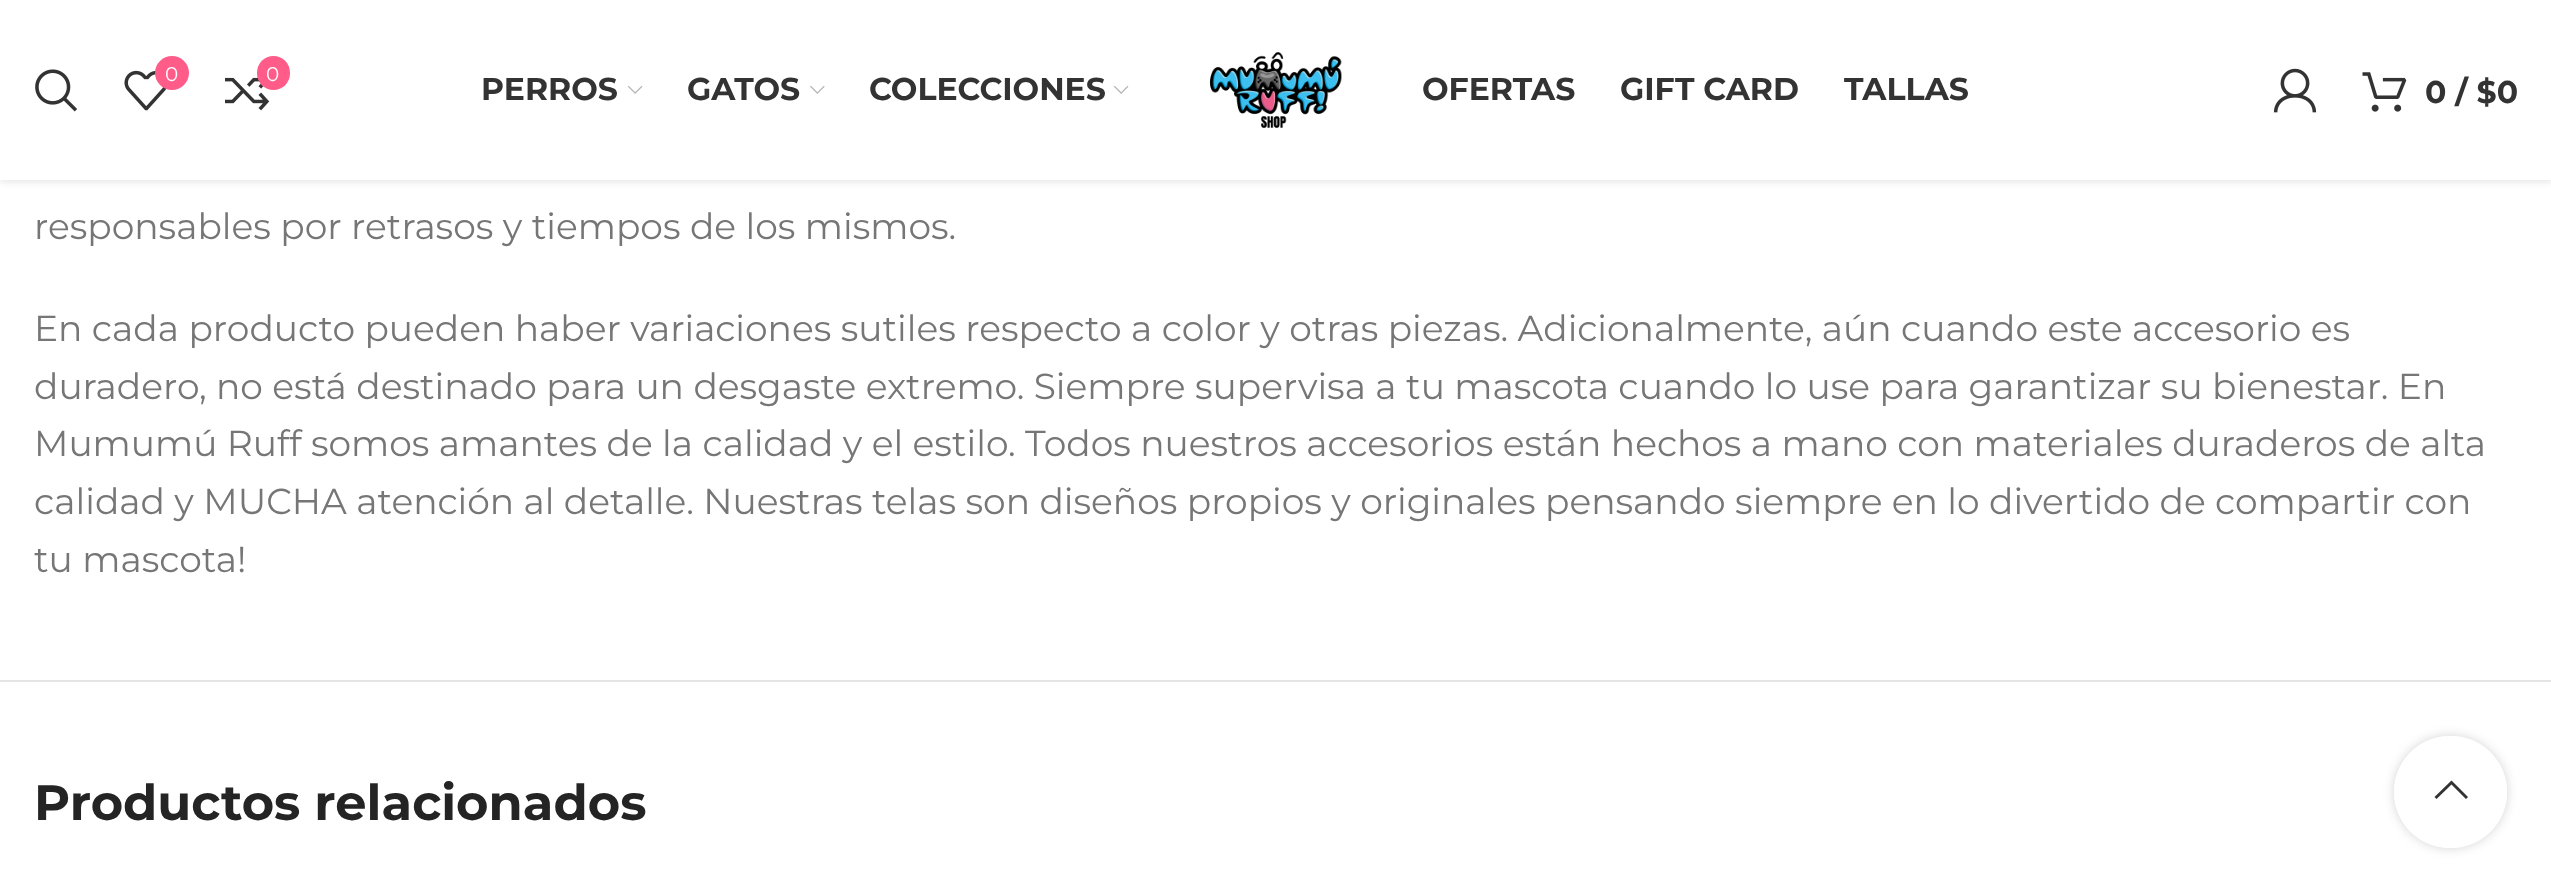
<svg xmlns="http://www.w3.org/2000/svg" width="2551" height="892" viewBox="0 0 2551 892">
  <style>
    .t1 { font: 20px Montserrat; fill: #fff; }
    .t2 { font: bold 31.5px Montserrat; fill: #333; }
    .t3 { font: 36px Montserrat; fill: #767676; }
    .t4 { font: bold 49.5px Montserrat; fill: #242424; }
  </style>
  <defs>
    <clipPath id="clip1"><path d="M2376 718H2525V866H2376ZM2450 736H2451C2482 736 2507 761 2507 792C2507 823 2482 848 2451 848H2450C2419 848 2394 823 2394 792C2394 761 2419 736 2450 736Z" clip-rule="evenodd"/></clipPath>
  </defs>
  <rect width="100%" height="100%" fill="#fff"/>
  <rect x="0" y="2" width="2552" height="180" fill="#0000001a" filter="blur(3.5px)"/>
  <rect x="0" y="0" width="2551" height="180" fill="#fff"/>
  <image x="35" y="69" width="42" height="43" href="images/1.png"/>
  <image x="124" y="70" width="43" height="41" href="images/2.png"/>
  <circle cx="172" cy="73" r="17" fill="#ff5c8a"/>
  <text x="165" y="81" class="t1">0</text>
  <image x="225" y="77" width="45" height="34" href="images/3.png"/>
  <rect x="257" y="56" width="33" height="34" rx="16.5" fill="#ff5c8a"/>
  <text x="266" y="81" class="t1">0</text>
  <text x="481" y="100" class="t2">PERROS</text>
  <image x="628" y="85" width="15" height="9" href="images/4.png"/>
  <text x="687" y="100" class="t2">GATOS</text>
  <image x="810" y="85" width="15" height="9" href="images/5.png"/>
  <text x="869" y="100" class="t2">COLECCIONES</text>
  <image x="1114" y="85" width="15" height="9" href="images/4.png"/>
  <image x="1209" y="52" width="133" height="76" href="images/6.png"/>
  <text x="1422" y="100" class="t2">OFERTAS</text>
  <text x="1620" y="100" class="t2">GIFT CARD</text>
  <text x="1844" y="100" class="t2">TALLAS</text>
  <image x="2273" y="68" width="44" height="45" href="images/7.png"/>
  <image x="2362" y="72" width="45" height="40" href="images/8.png"/>
  <text x="2425" y="103" class="t2">0 / $0</text>
  <rect x="0" y="680" width="2551" height="2" fill="#e4e4e4"/>
  <text x="34" y="239" class="t3">responsables por retrasos y tiempos de los mismos.</text>
  <text x="34" y="341" class="t3">En cada producto pueden haber variaciones sutiles respecto a color y otras piezas. Adicionalmente, aún cuando este accesorio es</text>
  <text x="34" y="399" class="t3">duradero, no está destinado para un desgaste extremo. Siempre supervisa a tu mascota cuando lo use para garantizar su bienestar. En</text>
  <text x="34" y="456" class="t3">Mumumú Ruff somos amantes de la calidad y el estilo. Todos nuestros accesorios están hechos a mano con materiales duraderos de alta</text>
  <text x="34" y="514" class="t3">calidad y MUCHA atención al detalle. Nuestras telas son diseños propios y originales pensando siempre en lo divertido de compartir con</text>
  <text x="34" y="572" class="t3">tu mascota!</text>
  <text x="34" y="820" class="t4">Productos relacionados</text>
  <g clip-path="url(#clip1)">
    <rect x="2394" y="736" width="113" height="112" rx="56" fill="#0000002b" filter="blur(5.5px)"/>
  </g>
  <rect x="2394" y="736" width="113" height="112" rx="56" fill="#ffffffe6"/>
  <path d="M2466 799L2468 797L2451.5 780.5L2434.5 797L2436.5 799L2451.5 784.5Z" fill="#333"/>
</svg>
